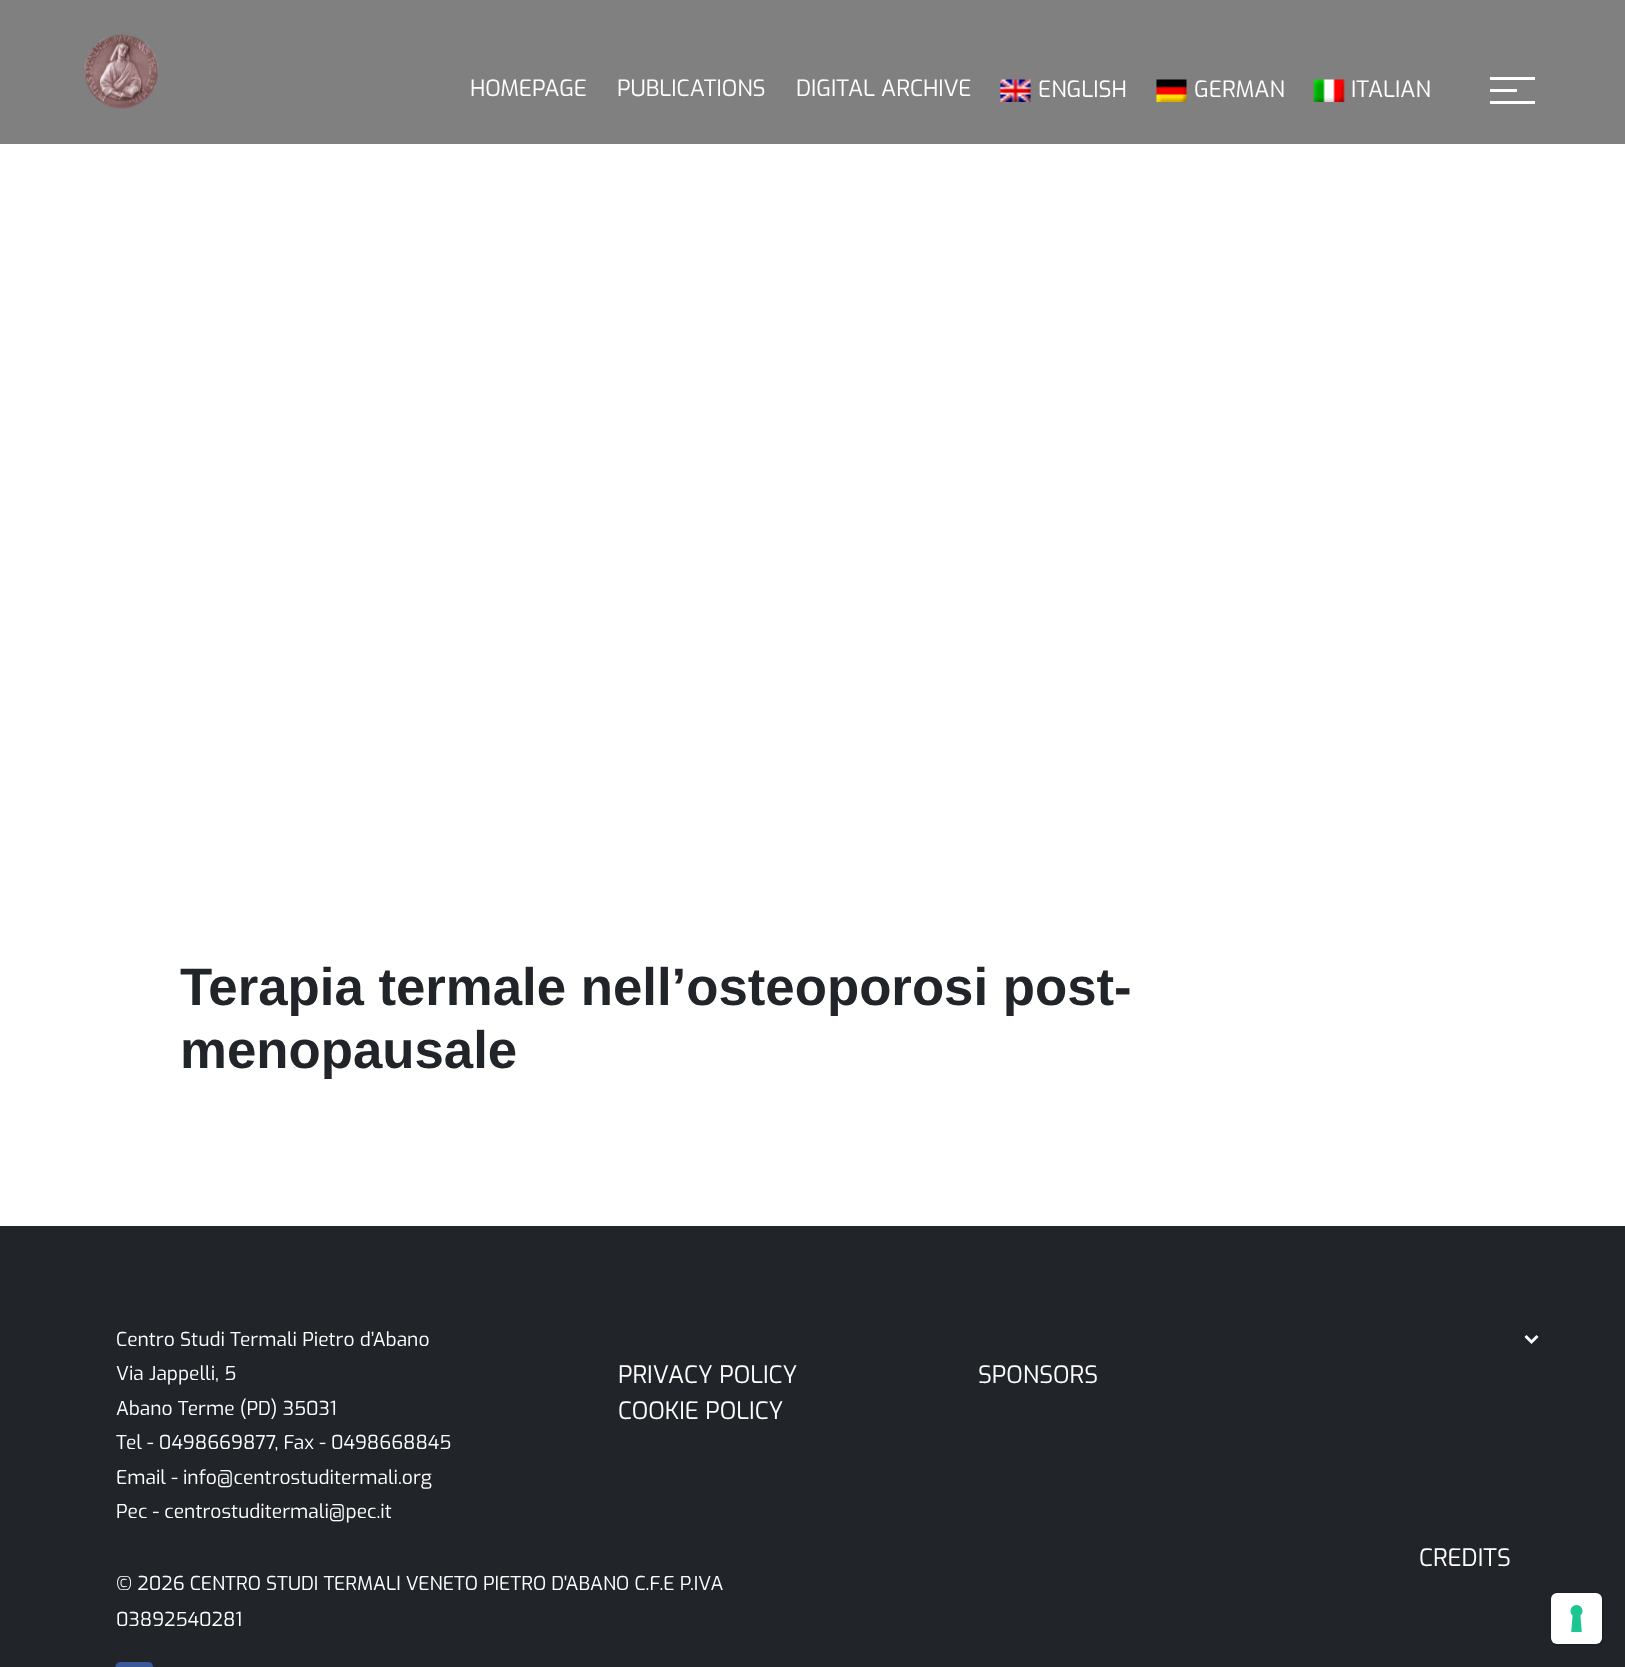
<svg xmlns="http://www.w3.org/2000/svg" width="1625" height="1667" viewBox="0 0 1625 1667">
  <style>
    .t1 { font: 22.5px Exo; fill: #fff; }
    .t2 { font: bold 52.75px Liberation Sans; fill: #212529; }
    .t3 { font: 19.2px Exo; fill: #fff; }
    .t4 { font: 24px Exo; fill: #fff; }
  </style>
  <rect width="100%" height="100%" fill="#fff"/>
  <rect x="0" y="0" width="1625" height="144" fill="#808080"/>
  <image x="84" y="34" width="75" height="75" href="images/1.png"/>
  <text x="470" y="96" class="t1">HOMEPAGE</text>
  <text x="617" y="96" class="t1">PUBLICATIONS</text>
  <text x="796" y="96" class="t1">DIGITAL ARCHIVE</text>
  <image x="1000" y="79" width="31" height="23" href="images/2.png"/>
  <text x="1038" y="97" class="t1">ENGLISH</text>
  <image x="1156" y="79" width="31" height="23" href="images/3.png"/>
  <text x="1194" y="97" class="t1">GERMAN</text>
  <image x="1313" y="79" width="32" height="23" href="images/4.png"/>
  <text x="1351" y="97" class="t1">ITALIAN</text>
  <rect x="1490" y="77" width="45" height="3" fill="#fff"/>
  <rect x="1490" y="89" width="27" height="3" fill="#fff"/>
  <rect x="1490" y="101" width="45" height="3" fill="#fff"/>
  <text x="180" y="1005" class="t2">Terapia termale nell’osteoporosi post-</text>
  <text x="180" y="1068" class="t2">menopausale</text>
  <rect x="0" y="1226" width="1625" height="441" fill="#212429"/>
  <text x="116" y="1346" class="t3">Centro Studi Termali Pietro d’Abano</text>
  <text x="116" y="1380" class="t3">Via Jappelli, 5</text>
  <text x="116" y="1415" class="t3">Abano Terme (PD) 35031</text>
  <text x="116" y="1449" class="t3">Tel - 0498669877, Fax - 0498668845</text>
  <text x="116" y="1484" class="t3">Email - info@centrostuditermali.org</text>
  <text x="116" y="1518" class="t3">Pec - centrostuditermali@pec.it</text>
  <path d="M1525.5 1336L1531.5 1342L1537.5 1336" fill="none" stroke="#fff" stroke-width="3"/>
  <text x="618" y="1383" class="t4">PRIVACY POLICY</text>
  <text x="618" y="1419" class="t4">COOKIE POLICY</text>
  <text x="978" y="1383" class="t4">SPONSORS</text>
  <text x="1419" y="1566" class="t4">CREDITS</text>
  <text x="116" y="1590" class="t3">© 2026 CENTRO STUDI TERMALI VENETO PIETRO D'ABANO C.F.E P.IVA</text>
  <text x="116" y="1626" class="t3">03892540281</text>
  <image x="115" y="1662" width="38" height="5" href="images/5.png"/>
  <rect x="1551" y="1593" width="52" height="52" rx="7" fill="none" stroke="#1c1f23" stroke-width="2"/>
  <rect x="1551" y="1593" width="51" height="51" rx="6" fill="#fff"/>
  <image x="1570" y="1605" width="13" height="27" href="images/6.png"/>
</svg>
